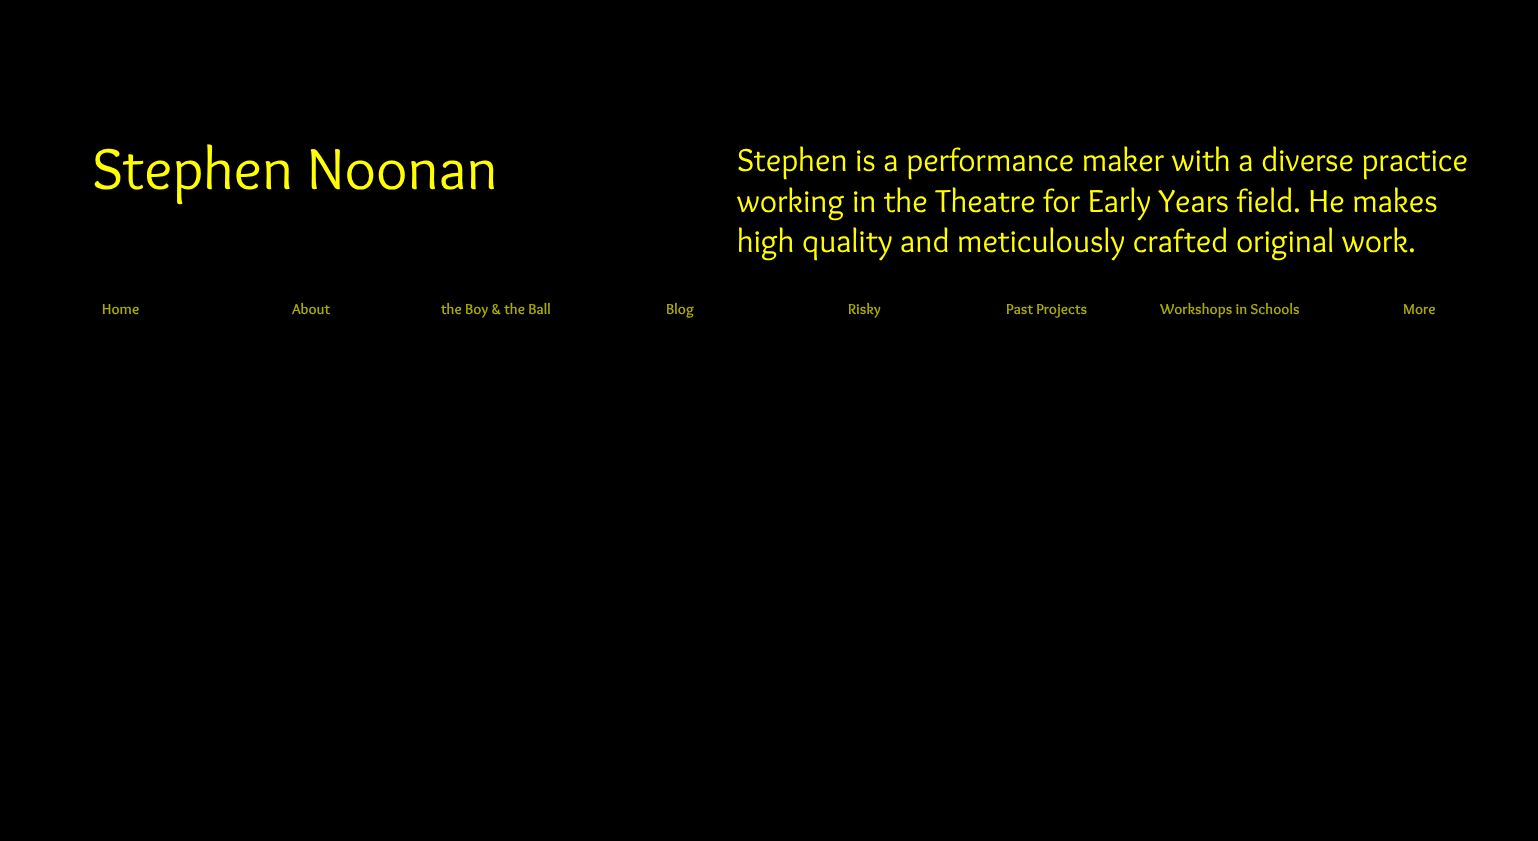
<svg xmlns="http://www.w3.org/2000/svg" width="1538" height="841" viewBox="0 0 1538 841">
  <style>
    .t1 { font: 60px Overlock; fill: #ff0; }
    .t2 { font: 33px Overlock; fill: #ff0; }
    .t3 { font: bold 15px Overlock; fill: #a9a900; }
  </style>
  <rect width="100%" height="100%" fill="#000"/>
  <text x="92" y="189" class="t1">Stephen Noonan</text>
  <text x="737" y="171" class="t2">Stephen is a performance maker with a diverse practice</text>
  <text x="737" y="212" class="t2">working in the Theatre for Early Years field. He makes</text>
  <text x="737" y="252" class="t2">high quality and meticulously crafted original work.</text>
  <text x="102" y="314" class="t3">Home</text>
  <text x="292" y="314" class="t3">About</text>
  <text x="441" y="314" class="t3">the Boy &amp; the Ball</text>
  <text x="666" y="314" class="t3">Blog</text>
  <text x="848" y="314" class="t3">Risky</text>
  <text x="1006" y="314" class="t3">Past Projects</text>
  <text x="1160" y="314" class="t3">Workshops in Schools</text>
  <text x="1403" y="314" class="t3">More</text>
</svg>
